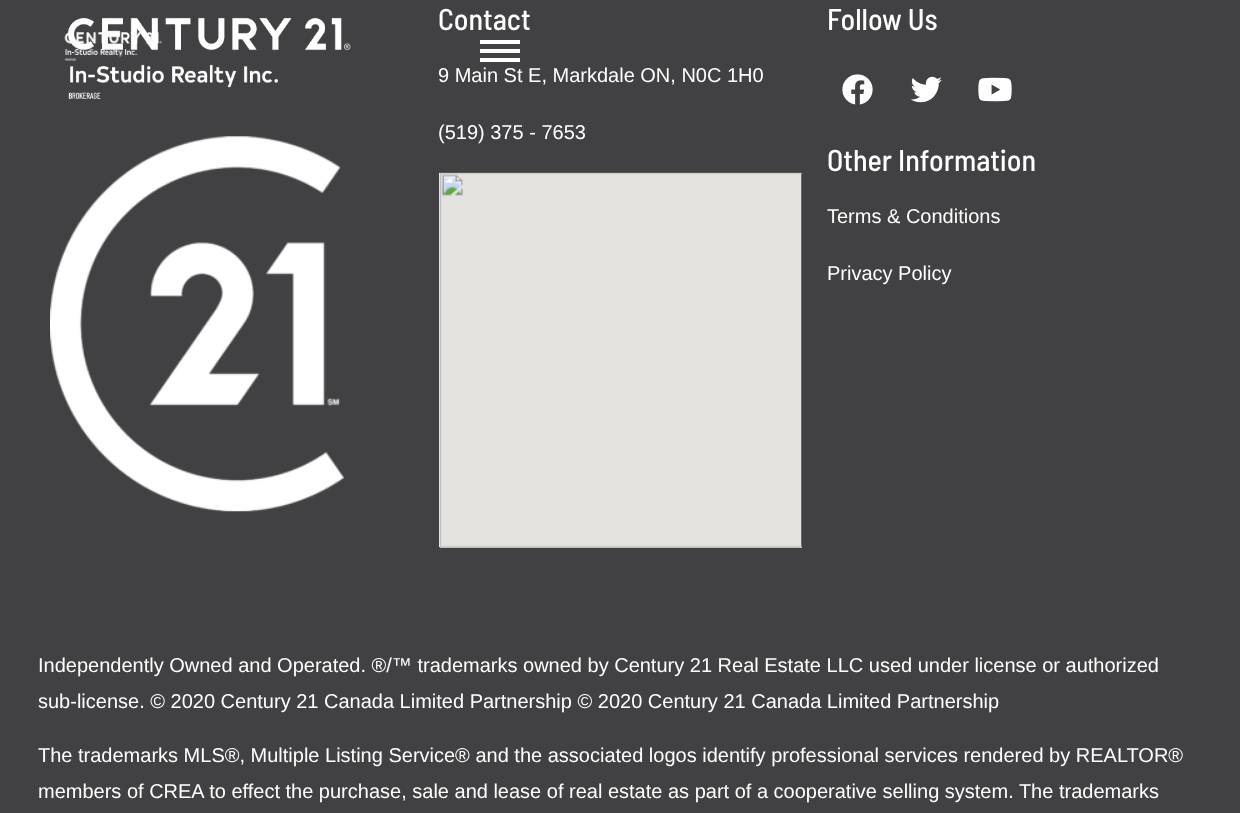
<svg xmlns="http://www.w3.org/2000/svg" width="1240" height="813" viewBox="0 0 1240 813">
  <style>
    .t1 { font: 500 30px Barlow Semi Condensed; fill: #fff; }
    .t2 { font: 20px Liberation Sans; fill: #fff; }
  </style>
  <rect width="100%" height="100%" fill="#414042"/>
  <image x="67" y="17" width="284" height="82" href="images/1.png"/>
  <image x="50" y="136" width="294" height="376" href="images/2.png"/>
  <text x="438" y="30" class="t1">Contact</text>
  <text x="438" y="82" class="t2">9 Main St E, Markdale ON, N0C 1H0</text>
  <text x="438" y="139" class="t2">(519) 375 - 7653</text>
  <image x="439" y="172" width="363" height="376" href="images/3.png"/>
  <text x="827" y="30" class="t1">Follow Us</text>
  <image x="842" y="74" width="31" height="31" href="images/4.png"/>
  <image x="910" y="76" width="32" height="27" href="images/5.png"/>
  <image x="978" y="77" width="34" height="25" href="images/6.png"/>
  <text x="827" y="171" class="t1">Other Information</text>
  <text x="827" y="223" class="t2">Terms &amp; Conditions</text>
  <text x="827" y="280" class="t2">Privacy Policy</text>
  <text x="38" y="672" class="t2">Independently Owned and Operated. ®/™ trademarks owned by Century 21 Real Estate LLC used under license or authorized</text>
  <text x="38" y="708" class="t2">sub-license. © 2020 Century 21 Canada Limited Partnership © 2020 Century 21 Canada Limited Partnership</text>
  <text x="38" y="762" class="t2">The trademarks MLS®, Multiple Listing Service® and the associated logos identify professional services rendered by REALTOR®</text>
  <text x="38" y="798" class="t2">members of CREA to effect the purchase, sale and lease of real estate as part of a cooperative selling system. The trademarks</text>
  <image x="64" y="32" width="98" height="29" href="images/7.png"/>
  <rect x="480" y="40" width="40" height="4" fill="#fff"/>
  <rect x="480" y="49" width="40" height="4" fill="#fff"/>
  <rect x="480" y="58" width="40" height="4" fill="#fff"/>
</svg>
